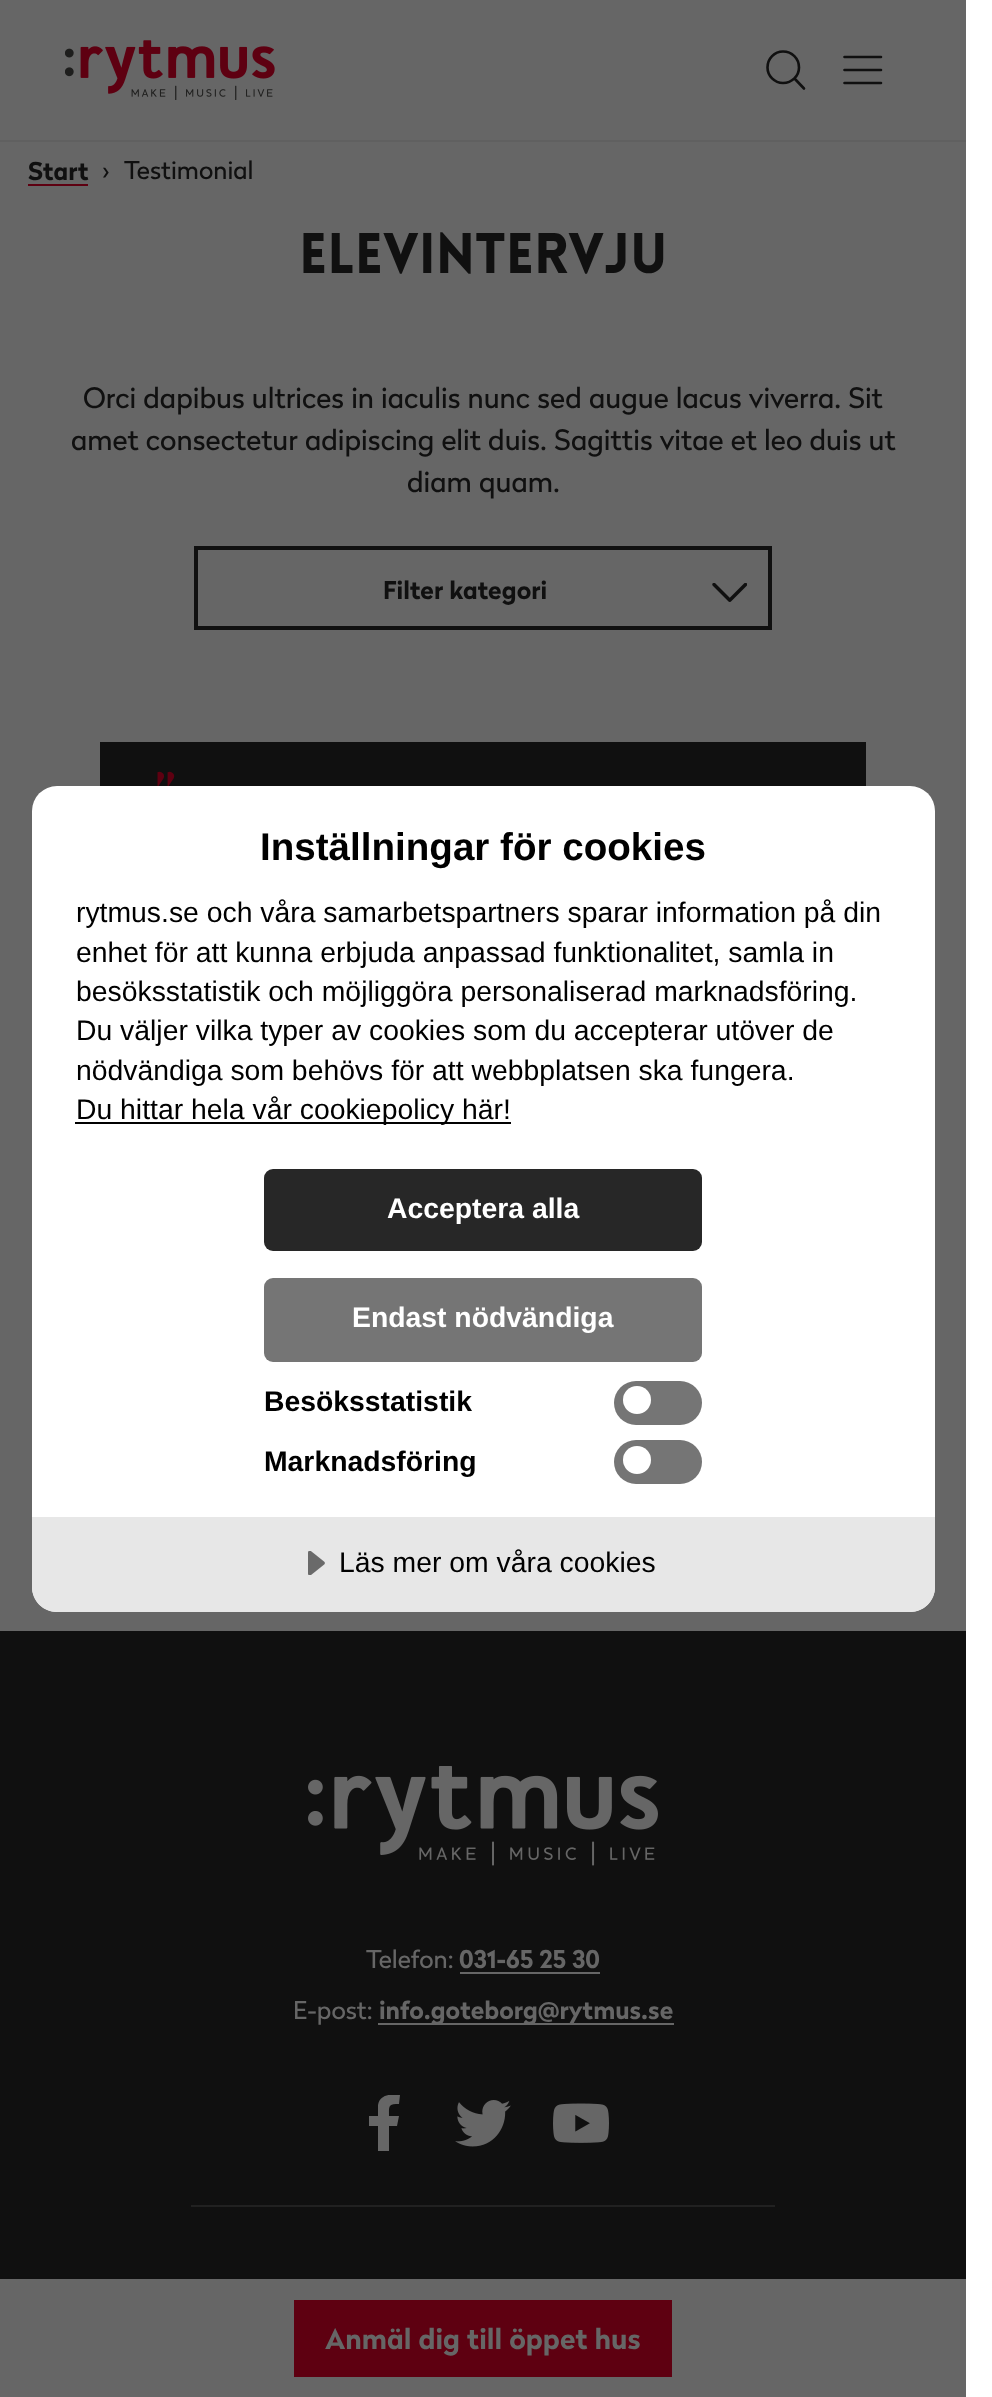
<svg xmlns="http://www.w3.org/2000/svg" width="992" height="2397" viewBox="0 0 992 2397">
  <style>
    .t1 { font: bold 24.5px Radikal; fill: #101010; }
    .t2 { font: 24.5px Radikal; fill: #101010; }
    .t3 { font: 900 56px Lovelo; fill: #101010; }
    .t4 { font: 28px Radikal; fill: #101010; }
    .t5 { font: bold 49px Radikal; fill: #5e0011; }
    .t6 { font: 24.5px Radikal; fill: #666; }
    .t7 { font: bold 24.5px Radikal; fill: #666; }
    .t8 { font: bold 28px Radikal; fill: #666; }
    .t9 { font: bold 38.6px Liberation Sans; fill: #000; }
    .t10 { font: 28.35px Liberation Sans; fill: #000; }
    .t11 { font: bold 28.35px Liberation Sans; fill: #fff; }
    .t12 { font: bold 28.35px Liberation Sans; fill: #000; }
  </style>
  <defs>
    <clipPath id="clip1"><rect x="357" y="2095" width="56" height="56"/></clipPath>
  </defs>
  <rect width="100%" height="100%" fill="#fff"/>
  <rect x="0" y="0" width="966" height="1631" fill="#666"/>
  <rect x="0" y="140" width="966" height="2" fill="#606060"/>
  <image x="65" y="40" width="210" height="60" href="images/1.png"/>
  <path d="M804 88.5L794.5 78.5M783 83C792 83 799 76 799 67.5C799 58.5 792 51.5 783 51.5C774.5 51.5 767.5 58.5 767.5 67.5C767.5 76 774.5 83 783 83Z" fill="none" stroke="#101010" stroke-width="2.6" stroke-linecap="round" stroke-linejoin="round"/>
  <path d="M881 83H844.5M881 70H844.5M881 57H844.5" fill="none" stroke="#101010" stroke-width="2.6" stroke-linecap="round" stroke-linejoin="round"/>
  <rect x="28" y="184" width="60" height="2" fill="#5e0011"/>
  <text x="28" y="180" class="t1">Start</text>
  <text x="102" y="179" class="t2">›</text>
  <text x="124" y="179" class="t2">Testimonial</text>
  <text x="299" y="273" class="t3">Elevintervju</text>
  <text x="83" y="408" class="t4">Orci dapibus ultrices in iaculis nunc sed augue lacus viverra. Sit</text>
  <text x="71" y="450" class="t4">amet consectetur adipiscing elit duis. Sagittis vitae et leo duis ut</text>
  <text x="407" y="492" class="t4">diam quam.</text>
  <rect x="196" y="548" width="574" height="80" fill="none" stroke="#101010" stroke-width="4"/>
  <text x="383" y="599" class="t1">Filter kategori</text>
  <image x="712" y="583" width="35" height="19" href="images/2.png"/>
  <rect x="100" y="742" width="766" height="44" fill="#101010"/>
  <text x="176" y="751" transform="rotate(180 176 751)" class="t5">“</text>
  <rect x="0" y="1631" width="966" height="648" fill="#101010"/>
  <image x="308" y="1766" width="350" height="100" href="images/3.png"/>
  <text x="366" y="1968" class="t6">Telefon:</text>
  <text x="459" y="1968" class="t7">031-65 25 30</text>
  <rect x="460" y="1972" width="140" height="2" fill="#666"/>
  <text x="293" y="2019" class="t6">E-post:</text>
  <rect x="378" y="2023" width="296" height="2" fill="#666"/>
  <text x="379" y="2019" class="t7">info.goteborg@rytmus.se</text>
  <g clip-path="url(#clip1)">
    <path d="M389 2126V2151H378V2126H369V2116H378V2105C380 2094 391 2094 400 2095L399 2104C388 2104 389 2106 389 2116H399L397 2126Z" fill="#666"/>
  </g>
  <image x="455" y="2100" width="56" height="47" href="images/4.png"/>
  <image x="553" y="2103" width="56" height="40" href="images/5.png"/>
  <rect x="191" y="2205" width="584" height="2" fill="#212121"/>
  <rect x="0" y="2279" width="966" height="118" fill="#666"/>
  <rect x="294" y="2300" width="378" height="77" fill="#5e0011"/>
  <text x="325" y="2349" class="t8">Anmäl dig till öppet hus</text>
  <rect x="32" y="786" width="903" height="826" rx="25" fill="#fff"/>
  <text x="260" y="860" class="t9">Inställningar för cookies</text>
  <text x="76" y="922" class="t10">rytmus.se och våra samarbetspartners sparar information på din</text>
  <text x="76" y="962" class="t10">enhet för att kunna erbjuda anpassad funktionalitet, samla in</text>
  <text x="76" y="1001" class="t10">besöksstatistik och möjliggöra personaliserad marknadsföring.</text>
  <text x="76" y="1040" class="t10">Du väljer vilka typer av cookies som du accepterar utöver de</text>
  <text x="76" y="1080" class="t10">nödvändiga som behövs för att webbplatsen ska fungera.</text>
  <rect x="75" y="1122" width="436" height="2" fill="#000"/>
  <text x="76" y="1119" class="t10">Du hittar hela vår cookiepolicy här!</text>
  <rect x="264" y="1169" width="438" height="82" rx="9" fill="#272727"/>
  <text x="387" y="1218" class="t11">Acceptera alla</text>
  <rect x="264" y="1278" width="438" height="84" rx="9" fill="#757575"/>
  <text x="352" y="1327" class="t11">Endast nödvändiga</text>
  <text x="264" y="1411" class="t12">Besöksstatistik</text>
  <rect x="614" y="1381" width="88" height="44" rx="22" fill="#757575"/>
  <circle cx="637" cy="1400" r="14" fill="#fff"/>
  <text x="264" y="1471" class="t12">Marknadsföring</text>
  <rect x="614" y="1440" width="88" height="44" rx="22" fill="#757575"/>
  <circle cx="637" cy="1460" r="14" fill="#fff"/>
  <path d="M32 1517H935V1587C935 1601 924 1612 910 1612H57C43 1612 32 1601 32 1587Z" fill="#e7e7e7"/>
  <image x="308" y="1551" width="17" height="24" href="images/6.png"/>
  <text x="339" y="1572" class="t10">Läs mer om våra cookies</text>
</svg>
